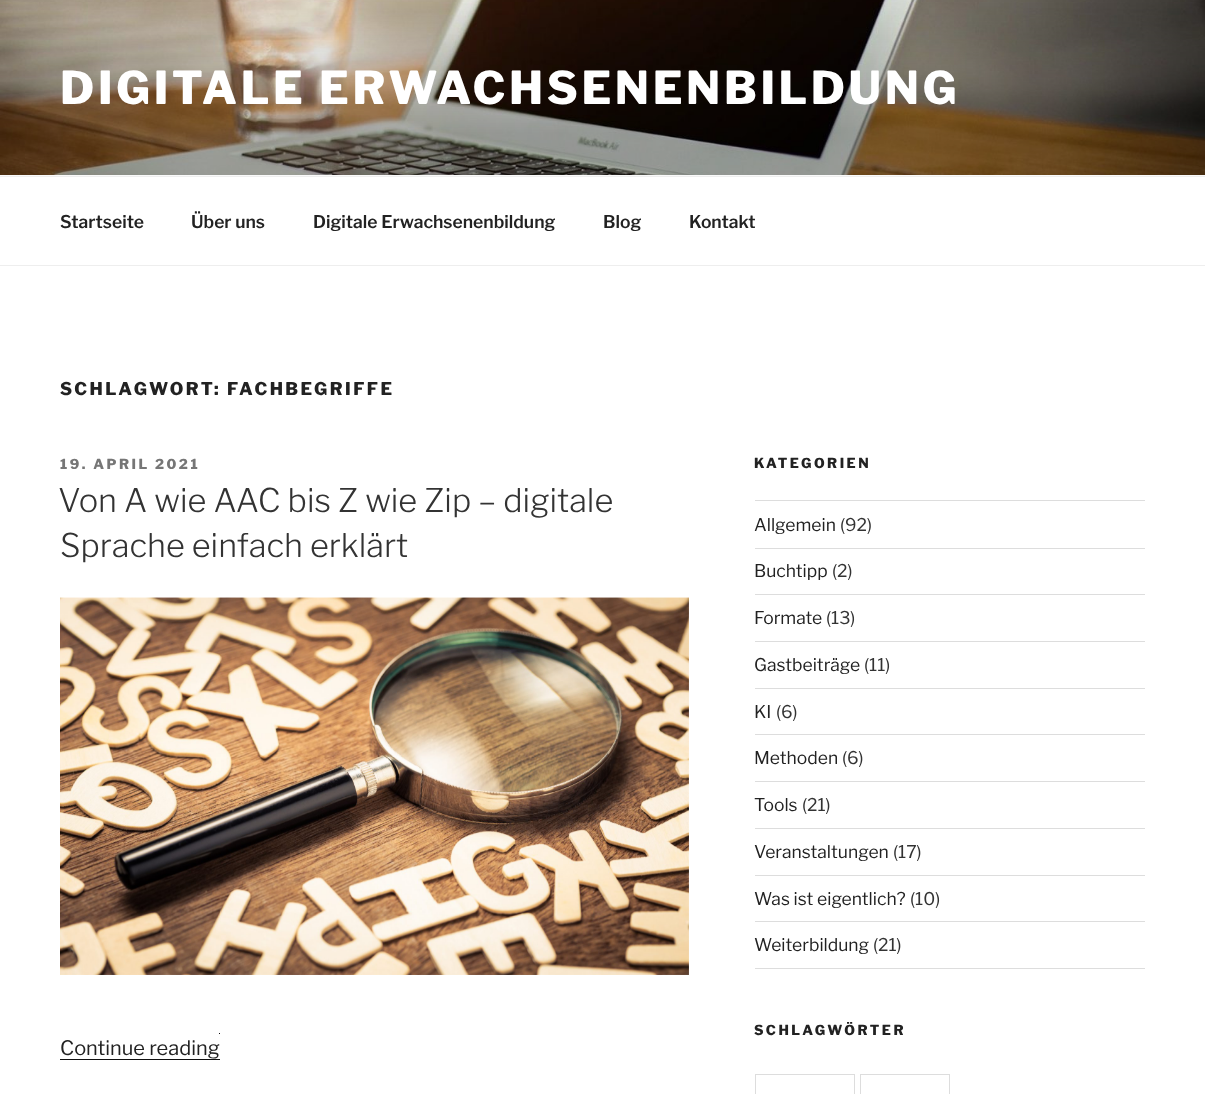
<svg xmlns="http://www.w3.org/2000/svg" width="1205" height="1094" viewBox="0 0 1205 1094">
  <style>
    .t1 { font: 100 45px Libre Franklin; letter-spacing: 3.6px; fill: #fff; }
    .t2 { font: 100 17.5px 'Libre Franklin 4'; fill: #222; }
    .t3 { font: 100 17.5px Libre Franklin; letter-spacing: 2.45px; fill: #222; }
    .t4 { font: 100 13.75px Libre Franklin; letter-spacing: 2.5px; fill: #767676; }
    .t5 { font: 100 32.5px 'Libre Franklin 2'; fill: #333; }
    .t6 { font: 100 20px 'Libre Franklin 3'; fill: #222; }
    .t7 { font: 100 13.75px Libre Franklin; letter-spacing: 2.5px; fill: #222; }
    .t8 { font: 100 17.5px 'Libre Franklin 3'; fill: #222; }
    .t9 { font: 100 17.5px 'Libre Franklin 3'; fill: #333; }
  </style>
  <rect width="100%" height="100%" fill="#fff"/>
  <rect x="0" y="175" width="1205" height="1" fill="#fafafa"/>
  <image x="0" y="0" width="1205" height="175" href="images/1.png"/>
  <text x="60" y="104" class="t1">DIGITALE ERWACHSENENBILDUNG</text>
  <rect x="0" y="176" width="1205" height="1" fill="#eee"/>
  <rect x="0" y="265" width="1205" height="1" fill="#eee"/>
  <text x="60" y="228" class="t2">Startseite</text>
  <text x="191" y="228" class="t2">Über uns</text>
  <text x="313" y="228" class="t2">Digitale Erwachsenenbildung</text>
  <text x="603" y="228" class="t2">Blog</text>
  <text x="689" y="228" class="t2">Kontakt</text>
  <text x="60" y="395" class="t3">SCHLAGWORT: FACHBEGRIFFE</text>
  <text x="60" y="469" class="t4">19. APRIL 2021</text>
  <text x="58" y="512" class="t5">Von A wie AAC bis Z wie Zip – digitale</text>
  <text x="60" y="557" class="t5">Sprache einfach erklärt</text>
  <image x="60" y="597" width="629" height="378" href="images/2.png"/>
  <text x="60" y="1055" class="t6">Continue reading</text>
  <rect x="60" y="1059" width="160" height="1" fill="#0f0f0f"/>
  <rect x="219" y="1033" width="1" height="1" fill="#0f0f0f"/>
  <text x="754" y="468" class="t7">KATEGORIEN</text>
  <rect x="755" y="500" width="390" height="1" fill="#ddd"/>
  <rect x="755" y="548" width="390" height="1" fill="#ddd"/>
  <text x="754" y="531" class="t8">Allgemein</text>
  <text x="840" y="531" class="t9">(92)</text>
  <rect x="755" y="594" width="390" height="1" fill="#ddd"/>
  <text x="754" y="577" class="t8">Buchtipp</text>
  <text x="832" y="577" class="t9">(2)</text>
  <rect x="755" y="641" width="390" height="1" fill="#ddd"/>
  <text x="754" y="624" class="t8">Formate</text>
  <text x="826" y="624" class="t9">(13)</text>
  <rect x="755" y="688" width="390" height="1" fill="#ddd"/>
  <text x="754" y="671" class="t8">Gastbeiträge</text>
  <text x="864" y="671" class="t9">(11)</text>
  <rect x="755" y="734" width="390" height="1" fill="#ddd"/>
  <text x="754" y="718" class="t8">KI</text>
  <text x="776" y="718" class="t9">(6)</text>
  <rect x="755" y="781" width="390" height="1" fill="#ddd"/>
  <text x="754" y="764" class="t8">Methoden</text>
  <text x="842" y="764" class="t9">(6)</text>
  <rect x="755" y="828" width="390" height="1" fill="#ddd"/>
  <text x="754" y="811" class="t8">Tools</text>
  <text x="802" y="811" class="t9">(21)</text>
  <rect x="755" y="875" width="390" height="1" fill="#ddd"/>
  <text x="754" y="858" class="t8">Veranstaltungen</text>
  <text x="893" y="858" class="t9">(17)</text>
  <rect x="755" y="921" width="390" height="1" fill="#ddd"/>
  <text x="754" y="905" class="t8">Was ist eigentlich?</text>
  <text x="910" y="905" class="t9">(10)</text>
  <rect x="755" y="968" width="390" height="1" fill="#ddd"/>
  <text x="754" y="951" class="t8">Weiterbildung</text>
  <text x="873" y="951" class="t9">(21)</text>
  <text x="754" y="1035" class="t7">SCHLAGWÖRTER</text>
  <rect x="755.5" y="1074.5" width="99" height="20" fill="none" stroke="#ddd"/>
  <rect x="860.5" y="1074.5" width="89" height="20" fill="none" stroke="#ddd"/>
</svg>
